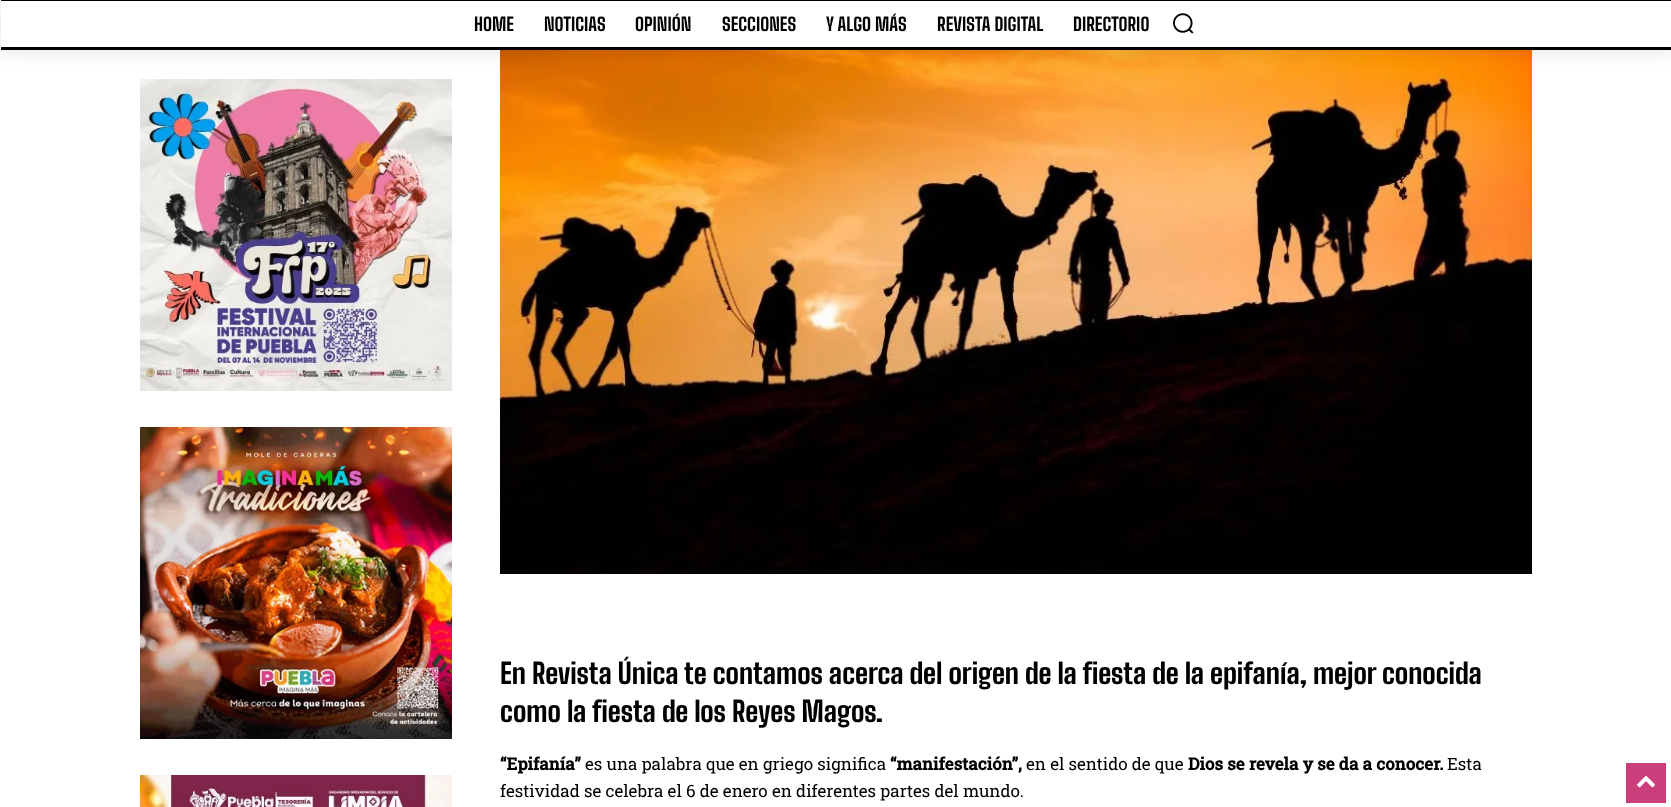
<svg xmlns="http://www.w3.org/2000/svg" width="1671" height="807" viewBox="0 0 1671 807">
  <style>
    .t1 { font: 800 18px Big Shoulders Text; fill: #000; }
    .t2 { font: 800 28px Big Shoulders Text; fill: #000; }
    .t3 { font: bold 17px Roboto Slab; fill: #000; }
    .t4 { font: 17px Roboto Slab; fill: #000; }
  </style>
  <defs>
    <clipPath id="clip1"><path d="M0 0H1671V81H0ZM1 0H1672V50H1Z" clip-rule="evenodd"/></clipPath>
  </defs>
  <rect width="100%" height="100%" fill="#fff"/>
  <rect x="1" y="0" width="1670" height="1" fill="#000"/>
  <rect x="1" y="47" width="1670" height="3" fill="#000"/>
  <image x="140" y="79" width="312" height="312" href="images/2.png"/>
  <image x="500" y="50" width="1032" height="524" href="images/5.png"/>
  <g clip-path="url(#clip1)">
    <rect x="1" y="0" width="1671" height="50" fill="#0000001f" filter="blur(10px)"/>
  </g>
  <text x="474" y="31" class="t1">HOME</text>
  <text x="544" y="31" class="t1">NOTICIAS</text>
  <text x="635" y="31" class="t1">OPINIÓN</text>
  <text x="722" y="31" class="t1">SECCIONES</text>
  <text x="826" y="31" class="t1">Y ALGO MÁS</text>
  <text x="937" y="31" class="t1">REVISTA DIGITAL</text>
  <text x="1073" y="31" class="t1">DIRECTORIO</text>
  <image x="1173" y="13" width="21" height="21" href="images/1.png"/>
  <image x="140" y="427" width="312" height="312" href="images/3.png"/>
  <image x="140" y="775" width="312" height="32" href="images/4.png"/>
  <text x="500" y="684" class="t2">En Revista Única te contamos acerca del origen de la fiesta de la epifanía, mejor conocida</text>
  <text x="500" y="722" class="t2">como la fiesta de los Reyes Magos.</text>
  <text x="500" y="770" class="t3">“Epifanía”</text>
  <text x="585" y="770" class="t4">es una palabra que en griego significa</text>
  <text x="890" y="770" class="t3">“manifestación”,</text>
  <text x="1026" y="770" class="t4">en el sentido de que</text>
  <text x="1188" y="770" class="t3">Dios se revela y se da a conocer.</text>
  <text x="1447" y="770" class="t4">Esta</text>
  <text x="500" y="797" class="t4">festividad se celebra el 6 de enero en diferentes partes del mundo.</text>
  <rect x="1626" y="763" width="40" height="40" fill="#ca3e7c"/>
  <image x="1637" y="775" width="18" height="13" href="images/6.png"/>
</svg>
